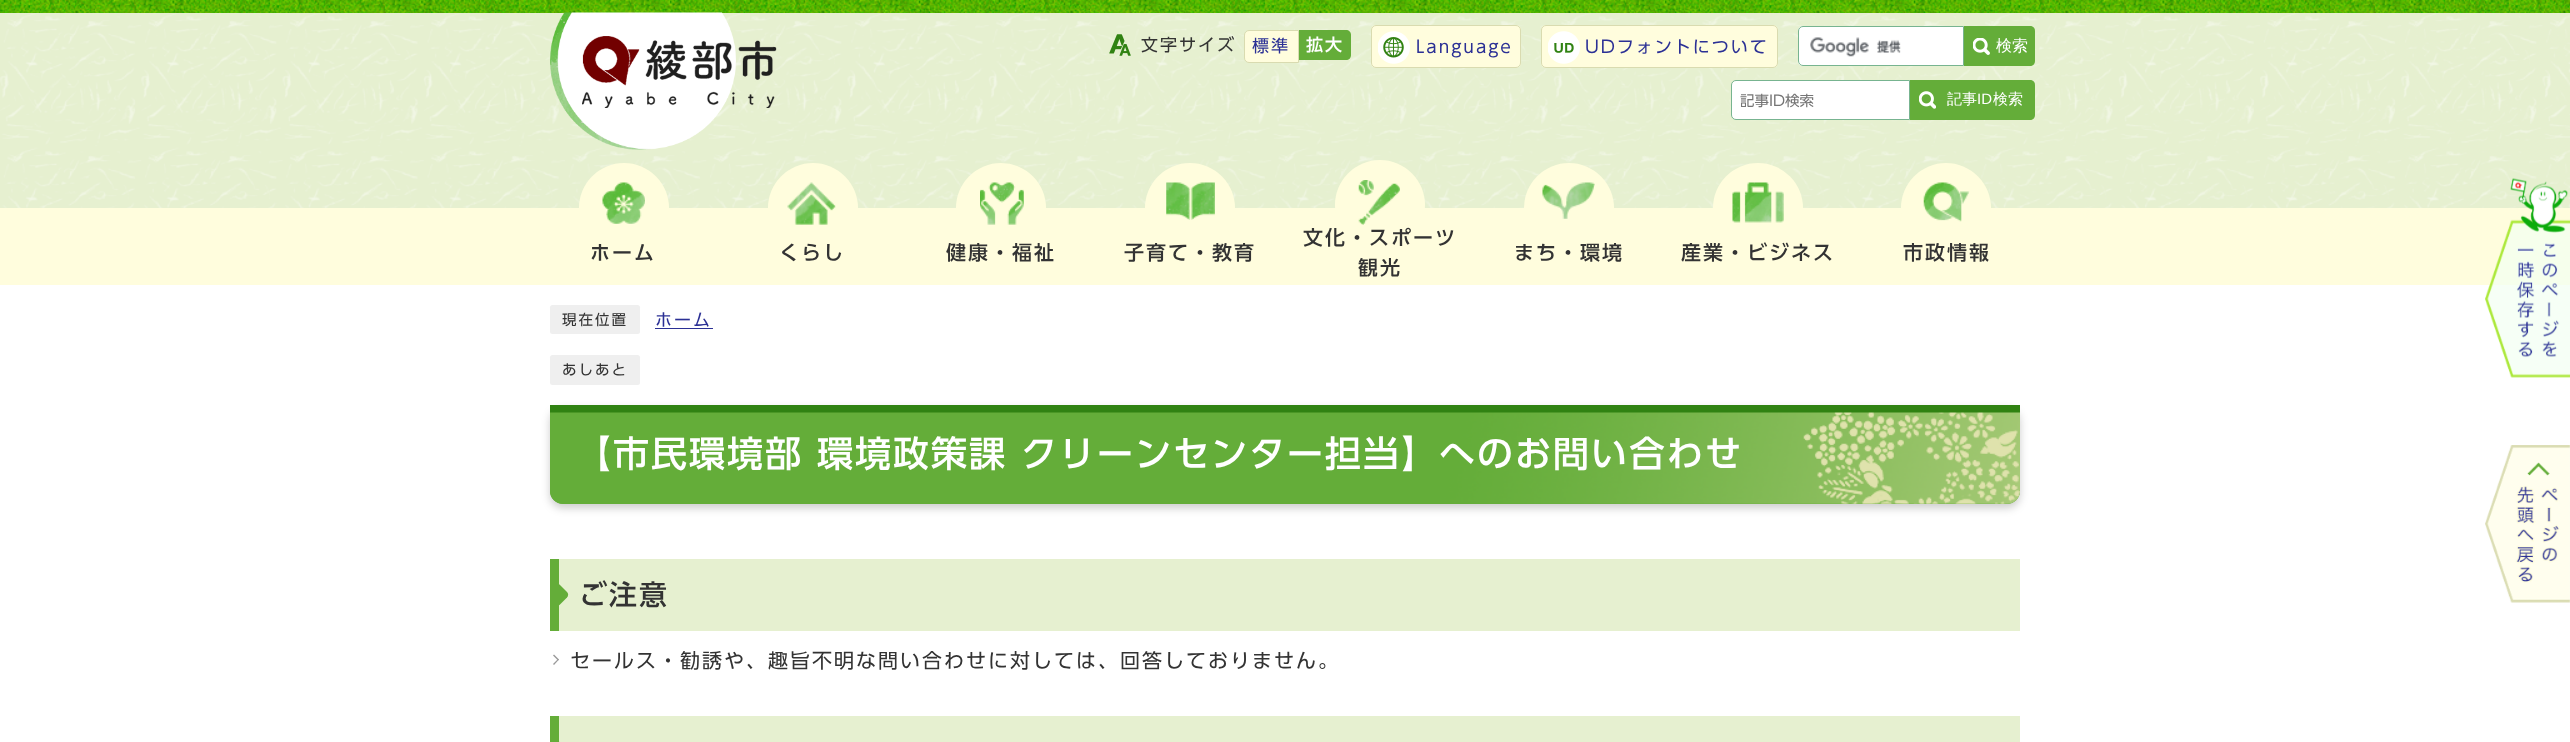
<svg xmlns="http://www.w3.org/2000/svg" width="2570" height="742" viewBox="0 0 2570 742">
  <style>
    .t1 { font: 17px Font; letter-spacing: 2px; fill: #333; }
    .t2 { font: 17px Font; letter-spacing: 2px; fill: #2b3095; }
    .t3 { font: 500 17px Font; letter-spacing: 2px; fill: #fff; }
    .t4 { font: 500 16px WenQuanYi Zen Hei; fill: #fff; }
    .t5 { font: 14.5px Font; fill: #757575; }
    .t6 { font: 500 15px WenQuanYi Zen Hei; fill: #fff; }
    .t7 { font: 15px Liberation Sans; fill: #fff; }
    .t8 { font: 500 20px Font; letter-spacing: 2px; fill: #333; }
    .t9 { font: 14.5px Font; letter-spacing: 2px; fill: #333; }
    .t10 { font: 500 36px Font; letter-spacing: 2px; fill: #fff; }
    .t11 { font: 500 28px Font; letter-spacing: 2px; fill: #333; }
    .t12 { font: 20px Font; letter-spacing: 2px; fill: #333; }
  </style>
  <defs>
    <clipPath id="clip1"><rect x="559" y="559" width="1461" height="72"/></clipPath>
    <clipPath id="clip2"><rect x="559" y="716" width="1461" height="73"/></clipPath>
  </defs>
  <rect width="100%" height="100%" fill="#fff"/>
  <image x="0" y="0" width="2570" height="13" href="images/1.png"/>
  <rect x="0" y="13" width="2570" height="195" fill="#e6f0d0"/>
  <image x="0" y="13" width="2570" height="195" href="images/2.png"/>
  <image x="1109" y="34" width="22" height="22" href="images/3.png"/>
  <text x="1141" y="51" class="t1">文字サイズ</text>
  <path d="M1249 30.5H1298.5V62.5H1249C1246.5 62.5 1244.5 60.5 1244.5 58V35C1244.5 32.5 1246.5 30.5 1249 30.5Z" fill="#fffddd" stroke="#d9dbb0"/>
  <text x="1252" y="52" class="t2">標準</text>
  <path d="M1299 30H1346C1349 30 1351 32 1351 35V55C1351 58 1349 60 1346 60H1299Z" fill="#64ad39"/>
  <text x="1306" y="51" class="t3">拡大</text>
  <rect x="1371" y="25" width="150" height="43" rx="5" fill="#fffddd"/>
  <image x="1378" y="31" width="32" height="33" href="images/4.png"/>
  <rect x="1371.5" y="25.5" width="149" height="42" rx="4.5" fill="none" stroke="#d9dbb0"/>
  <text x="1416" y="53" class="t2">Language</text>
  <rect x="1541" y="25" width="237" height="43" rx="5" fill="#fffddd"/>
  <image x="1548" y="31" width="32" height="33" href="images/5.png"/>
  <rect x="1541.5" y="25.5" width="236" height="42" rx="4.5" fill="none" stroke="#d9dbb0"/>
  <text x="1585" y="53" class="t2">UDフォントについて</text>
  <path d="M1803 26H1964V66H1803C1800 66 1798 64 1798 61V31C1798 28 1800 26 1803 26Z" fill="#fff"/>
  <image x="1810" y="37" width="91" height="20" href="images/6.png"/>
  <path d="M1803 26.5H1963.5V65.5H1803C1800.5 65.5 1798.5 63.5 1798.5 61V31C1798.5 28.5 1800.5 26.5 1803 26.5Z" fill="none" stroke="#77b490"/>
  <path d="M1964 26H2030C2033 26 2035 28 2035 31V61C2035 64 2033 66 2030 66H1964Z" fill="#64ad39"/>
  <image x="1973" y="38" width="17" height="17" href="images/7.png"/>
  <text x="1996" y="51" class="t4">検索</text>
  <path d="M1736 80.5H1909.5V119.5H1736C1733.5 119.5 1731.5 117.5 1731.5 115V85C1731.5 82.5 1733.5 80.5 1736 80.5Z" fill="#fff" stroke="#77b490"/>
  <text x="1740" y="106" class="t5">記事ID検索</text>
  <path d="M1910 80H2030C2033 80 2035 82 2035 85V115C2035 118 2033 120 2030 120H1910Z" fill="#64ad39"/>
  <image x="1919" y="91" width="17" height="18" href="images/8.png"/>
  <text x="1947" y="104" class="t6">記事</text>
  <text x="1977" y="104" class="t7">ID</text>
  <text x="1993" y="104" class="t6">検索</text>
  <rect x="0" y="208" width="2570" height="77" fill="#fffddd"/>
  <image x="550" y="12" width="227" height="138" href="images/9.png"/>
  <circle cx="624" cy="208" r="45" fill="#fffddd"/>
  <image x="602" y="182" width="43" height="42" href="images/10.png"/>
  <text x="590" y="260" class="t8">ホーム</text>
  <circle cx="813" cy="208" r="45" fill="#fffddd"/>
  <image x="787" y="182" width="49" height="43" href="images/11.png"/>
  <text x="779" y="260" class="t8">くらし</text>
  <circle cx="1001" cy="208" r="45" fill="#fffddd"/>
  <image x="980" y="182" width="44" height="43" href="images/12.png"/>
  <text x="946" y="260" class="t8">健康・福祉</text>
  <circle cx="1190" cy="208" r="45" fill="#fffddd"/>
  <image x="1166" y="182" width="49" height="38" href="images/13.png"/>
  <text x="1124" y="260" class="t8">子育て・教育</text>
  <circle cx="1380" cy="205" r="45" fill="#fffddd"/>
  <image x="1358" y="180" width="42" height="45" href="images/14.png"/>
  <text x="1303" y="245" class="t8">文化・スポーツ</text>
  <text x="1358" y="275" class="t8">観光</text>
  <circle cx="1569" cy="208" r="45" fill="#fffddd"/>
  <image x="1542" y="182" width="53" height="37" href="images/15.png"/>
  <text x="1514" y="260" class="t8">まち・環境</text>
  <circle cx="1758" cy="208" r="45" fill="#fffddd"/>
  <image x="1732" y="182" width="52" height="41" href="images/16.png"/>
  <text x="1681" y="260" class="t8">産業・ビジネス</text>
  <circle cx="1946" cy="208" r="45" fill="#fffddd"/>
  <image x="1923" y="182" width="47" height="40" href="images/17.png"/>
  <text x="1903" y="260" class="t8">市政情報</text>
  <image x="2485" y="178" width="85" height="200" href="images/18.png"/>
  <image x="2485" y="445" width="85" height="158" href="images/19.png"/>
  <rect x="550" y="305" width="90" height="29" rx="2.5" fill="#efefef"/>
  <text x="562" y="325" class="t9">現在位置</text>
  <text x="655" y="326" class="t2">ホーム</text>
  <rect x="655" y="328" width="58" height="1" fill="#2b3095"/>
  <rect x="550" y="355" width="90" height="30" rx="2.5" fill="#efefef"/>
  <text x="562" y="375" class="t9">あしあと</text>
  <rect x="550" y="409" width="1470" height="99" rx="13" fill="#00000033" filter="blur(4px)"/>
  <path d="M550 405H2020V491C2020 498 2014 504 2007 504H563C556 504 550 498 550 491Z" fill="#64ad39"/>
  <image x="550" y="405" width="1470" height="99" href="images/20.png"/>
  <text x="575" y="467" class="t10">【市民環境部 環境政策課 クリーンセンター担当】へのお問い合わせ</text>
  <rect x="559" y="559" width="1461" height="72" fill="#e6f0d0"/>
  <rect x="550" y="559" width="9" height="72" fill="#64ad39"/>
  <g clip-path="url(#clip1)">
    <path d="M560 585L567 592C568.5 593.5 568.5 596 567 597.5L560 604.5C558.5 606 556.5 606 555 604.5L548 597.5C546.5 596 546.5 593.5 548 592L555 585C556.5 583.5 558.5 583.5 560 585Z" fill="#64ad39"/>
  </g>
  <text x="579" y="605" class="t11">ご注意</text>
  <path d="M553 655.5L554 654.5L559 659.5L558 660.5Z" fill="#999"/>
  <path d="M553 664L558 659L559 659.5L554 665Z" fill="#999"/>
  <text x="570" y="668" class="t12">セールス・勧誘や、趣旨不明な問い合わせに対しては、回答しておりません。</text>
  <rect x="559" y="716" width="1461" height="26" fill="#e6f0d0"/>
  <rect x="550" y="716" width="9" height="26" fill="#64ad39"/>
  <g clip-path="url(#clip2)">
    <path d="M560 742.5L567 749.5C568.5 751 568.5 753.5 567 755L560 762C558.5 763.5 556.5 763.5 555 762L548 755C546.5 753.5 546.5 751 548 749.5L555 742.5C556.5 741 558.5 741 560 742.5Z" fill="#64ad39"/>
  </g>
</svg>
